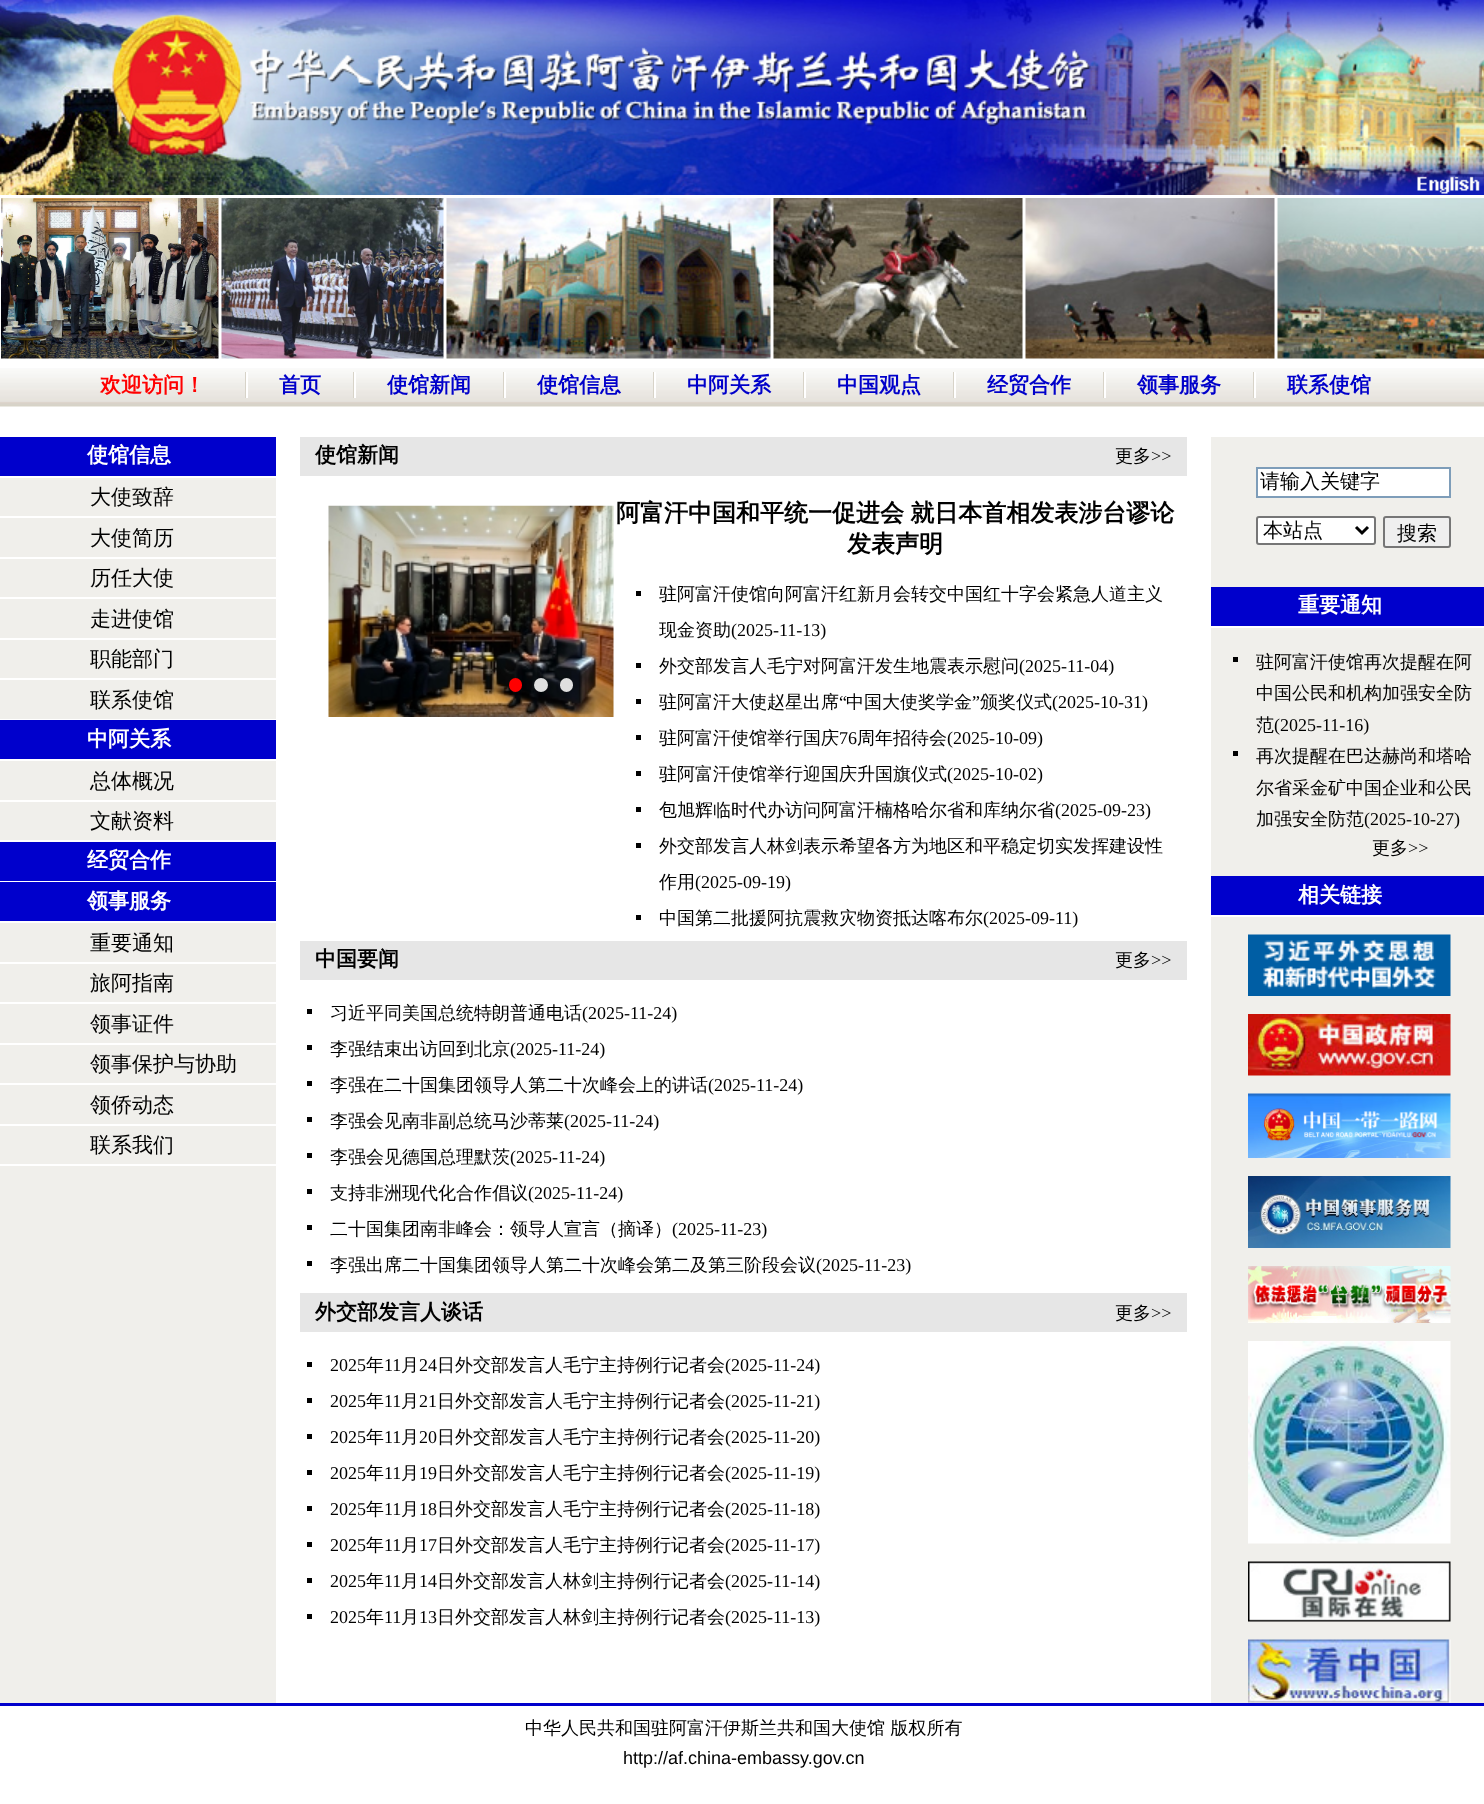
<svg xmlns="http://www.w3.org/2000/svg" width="1484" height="1804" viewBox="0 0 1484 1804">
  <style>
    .t1 { font: bold 21px WenQuanYi Zen Hei; fill: #f00; }
    .t2 { font: bold 21px WenQuanYi Zen Hei; fill: #0000ca; }
    .t3 { font: bold 21px WenQuanYi Zen Hei; fill: #fff; }
    .t4 { font: 500 21px WenQuanYi Zen Hei; fill: #000; }
    .t5 { font: bold 21px WenQuanYi Zen Hei; fill: #000; }
    .t6 { font: 500 18px WenQuanYi Zen Hei; fill: #000; }
    .t7 { font: 18px Liberation Serif; fill: #000; }
    .t8 { font: bold 24px WenQuanYi Zen Hei; fill: #000; }
    .t9 { font: 500 20px WenQuanYi Zen Hei; fill: #000; }
    .t10 { font: 18px Liberation Sans; fill: #000; }
  </style>
  <rect width="100%" height="100%" fill="#fff"/>
  <image x="0" y="0" width="1484" height="195" href="images/1.png"/>
  <image x="1" y="198" width="218" height="161" href="images/2.png"/>
  <image x="221" y="198" width="223" height="161" href="images/3.png"/>
  <image x="446" y="198" width="325" height="161" href="images/4.png"/>
  <image x="773" y="198" width="250" height="161" href="images/5.png"/>
  <image x="1025" y="198" width="250" height="161" href="images/6.png"/>
  <image x="1277" y="198" width="207" height="161" href="images/7.png"/>
  <image x="0" y="368" width="1484" height="39" href="images/8.png"/>
  <rect x="245" y="372" width="1" height="26" fill="#d7d3c8"/>
  <text x="100" y="392" class="t1">欢迎访问！</text>
  <rect x="353" y="372" width="1" height="26" fill="#d7d3c8"/>
  <rect x="246" y="372" width="2" height="26" fill="#fff"/>
  <text x="279" y="392" class="t2">首页</text>
  <rect x="503" y="372" width="1" height="26" fill="#d7d3c8"/>
  <rect x="354" y="372" width="2" height="26" fill="#fff"/>
  <text x="387" y="392" class="t2">使馆新闻</text>
  <rect x="653" y="372" width="1" height="26" fill="#d7d3c8"/>
  <rect x="504" y="372" width="2" height="26" fill="#fff"/>
  <text x="537" y="392" class="t2">使馆信息</text>
  <rect x="803" y="372" width="1" height="26" fill="#d7d3c8"/>
  <rect x="654" y="372" width="2" height="26" fill="#fff"/>
  <text x="687" y="392" class="t2">中阿关系</text>
  <rect x="953" y="372" width="1" height="26" fill="#d7d3c8"/>
  <rect x="804" y="372" width="2" height="26" fill="#fff"/>
  <text x="837" y="392" class="t2">中国观点</text>
  <rect x="1103" y="372" width="1" height="26" fill="#d7d3c8"/>
  <rect x="954" y="372" width="2" height="26" fill="#fff"/>
  <text x="987" y="392" class="t2">经贸合作</text>
  <rect x="1253" y="372" width="1" height="26" fill="#d7d3c8"/>
  <rect x="1104" y="372" width="2" height="26" fill="#fff"/>
  <text x="1137" y="392" class="t2">领事服务</text>
  <rect x="1254" y="372" width="2" height="26" fill="#fff"/>
  <text x="1287" y="392" class="t2">联系使馆</text>
  <rect x="0" y="478" width="276" height="1225" fill="#f0efeb"/>
  <rect x="0" y="437" width="276" height="39" fill="#00c"/>
  <text x="87" y="462" class="t3">使馆信息</text>
  <rect x="0" y="516" width="276" height="2" fill="#fff"/>
  <text x="90" y="504" class="t4">大使致辞</text>
  <rect x="0" y="557" width="276" height="2" fill="#fff"/>
  <text x="90" y="545" class="t4">大使简历</text>
  <rect x="0" y="597" width="276" height="2" fill="#fff"/>
  <text x="90" y="585" class="t4">历任大使</text>
  <rect x="0" y="638" width="276" height="2" fill="#fff"/>
  <text x="90" y="626" class="t4">走进使馆</text>
  <rect x="0" y="678" width="276" height="2" fill="#fff"/>
  <text x="90" y="666" class="t4">职能部门</text>
  <rect x="0" y="719" width="276" height="1" fill="#fff"/>
  <text x="90" y="707" class="t4">联系使馆</text>
  <rect x="0" y="720" width="276" height="39" fill="#00c"/>
  <rect x="0" y="759" width="276" height="2" fill="#fff"/>
  <text x="87" y="746" class="t3">中阿关系</text>
  <rect x="0" y="800" width="276" height="2" fill="#fff"/>
  <text x="90" y="788" class="t4">总体概况</text>
  <rect x="0" y="840" width="276" height="2" fill="#fff"/>
  <text x="90" y="828" class="t4">文献资料</text>
  <rect x="0" y="842" width="276" height="39" fill="#00c"/>
  <rect x="0" y="881" width="276" height="1" fill="#fff"/>
  <text x="87" y="867" class="t3">经贸合作</text>
  <rect x="0" y="882" width="276" height="39" fill="#00c"/>
  <rect x="0" y="921" width="276" height="2" fill="#fff"/>
  <text x="87" y="908" class="t3">领事服务</text>
  <rect x="0" y="962" width="276" height="2" fill="#fff"/>
  <text x="90" y="950" class="t4">重要通知</text>
  <rect x="0" y="1002" width="276" height="2" fill="#fff"/>
  <text x="90" y="990" class="t4">旅阿指南</text>
  <rect x="0" y="1043" width="276" height="2" fill="#fff"/>
  <text x="90" y="1031" class="t4">领事证件</text>
  <rect x="0" y="1083" width="276" height="2" fill="#fff"/>
  <text x="90" y="1071" class="t4">领事保护与协助</text>
  <rect x="0" y="1124" width="276" height="2" fill="#fff"/>
  <text x="90" y="1112" class="t4">领侨动态</text>
  <rect x="0" y="1164" width="276" height="2" fill="#fff"/>
  <text x="90" y="1152" class="t4">联系我们</text>
  <rect x="300" y="437" width="887" height="39" fill="#e6e6e6"/>
  <text x="315" y="462" class="t5">使馆新闻</text>
  <text x="1115" y="462" class="t6">更多</text>
  <text x="1151" y="462" class="t7">&gt;&gt;</text>
  <image x="328" y="505" width="286" height="212" href="images/9.png"/>
  <rect x="509" y="678" width="13" height="14" rx="6.5" fill="#f00"/>
  <circle cx="541" cy="685" r="7" fill="#dfdfdf"/>
  <rect x="560" y="678" width="13" height="14" rx="6.5" fill="#dfdfdf"/>
  <text x="616" y="521" word-spacing="-1" class="t8">阿富汗中国和平统一促进会 就日本首相发表涉台谬论</text>
  <text x="847" y="552" class="t8">发表声明</text>
  <rect x="636" y="591" width="5" height="5" fill="#000"/>
  <text x="659" y="600" class="t6">驻阿富汗使馆向阿富汗红新月会转交中国红十字会紧急人道主义</text>
  <text x="659" y="636" class="t6">现金资助</text>
  <text x="731" y="636" class="t7">(2025-11-13)</text>
  <rect x="636" y="663" width="5" height="5" fill="#000"/>
  <text x="659" y="672" class="t6">外交部发言人毛宁对阿富汗发生地震表示慰问</text>
  <text x="1019" y="672" class="t7">(2025-11-04)</text>
  <rect x="636" y="699" width="5" height="5" fill="#000"/>
  <text x="659" y="708" class="t6">驻阿富汗大使赵星出席</text>
  <text x="839" y="708" class="t7">“</text>
  <text x="846" y="708" class="t6">中国大使奖学金</text>
  <text x="972" y="708" class="t7">”</text>
  <text x="980" y="708" class="t6">颁奖仪式</text>
  <text x="1052" y="708" class="t7">(2025-10-31)</text>
  <rect x="636" y="735" width="5" height="5" fill="#000"/>
  <text x="659" y="744" class="t6">驻阿富汗使馆举行国庆</text>
  <text x="839" y="744" class="t7">76</text>
  <text x="857" y="744" class="t6">周年招待会</text>
  <text x="947" y="744" class="t7">(2025-10-09)</text>
  <rect x="636" y="771" width="5" height="5" fill="#000"/>
  <text x="659" y="780" class="t6">驻阿富汗使馆举行迎国庆升国旗仪式</text>
  <text x="947" y="780" class="t7">(2025-10-02)</text>
  <rect x="636" y="807" width="5" height="5" fill="#000"/>
  <text x="659" y="816" class="t6">包旭辉临时代办访问阿富汗楠格哈尔省和库纳尔省</text>
  <text x="1055" y="816" class="t7">(2025-09-23)</text>
  <rect x="636" y="843" width="5" height="5" fill="#000"/>
  <text x="659" y="852" class="t6">外交部发言人林剑表示希望各方为地区和平稳定切实发挥建设性</text>
  <text x="659" y="888" class="t6">作用</text>
  <text x="695" y="888" class="t7">(2025-09-19)</text>
  <rect x="636" y="915" width="5" height="5" fill="#000"/>
  <text x="659" y="924" class="t6">中国第二批援阿抗震救灾物资抵达喀布尔</text>
  <text x="983" y="924" class="t7">(2025-09-11)</text>
  <rect x="300" y="941" width="887" height="39" fill="#e6e6e6"/>
  <text x="315" y="966" class="t5">中国要闻</text>
  <text x="1115" y="966" class="t6">更多</text>
  <text x="1151" y="966" class="t7">&gt;&gt;</text>
  <rect x="307" y="1009" width="5" height="5" fill="#000"/>
  <text x="330" y="1019" class="t6">习近平同美国总统特朗普通电话</text>
  <text x="582" y="1019" class="t7">(2025-11-24)</text>
  <rect x="307" y="1045" width="5" height="5" fill="#000"/>
  <text x="330" y="1055" class="t6">李强结束出访回到北京</text>
  <text x="510" y="1055" class="t7">(2025-11-24)</text>
  <rect x="307" y="1081" width="5" height="5" fill="#000"/>
  <text x="330" y="1091" class="t6">李强在二十国集团领导人第二十次峰会上的讲话</text>
  <text x="708" y="1091" class="t7">(2025-11-24)</text>
  <rect x="307" y="1117" width="5" height="5" fill="#000"/>
  <text x="330" y="1127" class="t6">李强会见南非副总统马沙蒂莱</text>
  <text x="564" y="1127" class="t7">(2025-11-24)</text>
  <rect x="307" y="1153" width="5" height="5" fill="#000"/>
  <text x="330" y="1163" class="t6">李强会见德国总理默茨</text>
  <text x="510" y="1163" class="t7">(2025-11-24)</text>
  <rect x="307" y="1189" width="5" height="5" fill="#000"/>
  <text x="330" y="1199" class="t6">支持非洲现代化合作倡议</text>
  <text x="528" y="1199" class="t7">(2025-11-24)</text>
  <rect x="307" y="1225" width="5" height="5" fill="#000"/>
  <text x="330" y="1235" class="t6">二十国集团南非峰会：领导人宣言（摘译）</text>
  <text x="672" y="1235" class="t7">(2025-11-23)</text>
  <rect x="307" y="1261" width="5" height="5" fill="#000"/>
  <text x="330" y="1271" class="t6">李强出席二十国集团领导人第二十次峰会第二及第三阶段会议</text>
  <text x="816" y="1271" class="t7">(2025-11-23)</text>
  <rect x="300" y="1293" width="887" height="39" fill="#e6e6e6"/>
  <text x="315" y="1319" class="t5">外交部发言人谈话</text>
  <text x="1115" y="1319" class="t6">更多</text>
  <text x="1151" y="1319" class="t7">&gt;&gt;</text>
  <rect x="307" y="1362" width="5" height="5" fill="#000"/>
  <text x="330" y="1371" class="t7">2025</text>
  <text x="366" y="1371" class="t6">年</text>
  <text x="384" y="1371" class="t7">11</text>
  <text x="401" y="1371" class="t6">月</text>
  <text x="419" y="1371" class="t7">24</text>
  <text x="437" y="1371" class="t6">日外交部发言人毛宁主持例行记者会</text>
  <text x="725" y="1371" class="t7">(2025-11-24)</text>
  <rect x="307" y="1398" width="5" height="5" fill="#000"/>
  <text x="330" y="1407" class="t7">2025</text>
  <text x="366" y="1407" class="t6">年</text>
  <text x="384" y="1407" class="t7">11</text>
  <text x="401" y="1407" class="t6">月</text>
  <text x="419" y="1407" class="t7">21</text>
  <text x="437" y="1407" class="t6">日外交部发言人毛宁主持例行记者会</text>
  <text x="725" y="1407" class="t7">(2025-11-21)</text>
  <rect x="307" y="1434" width="5" height="5" fill="#000"/>
  <text x="330" y="1443" class="t7">2025</text>
  <text x="366" y="1443" class="t6">年</text>
  <text x="384" y="1443" class="t7">11</text>
  <text x="401" y="1443" class="t6">月</text>
  <text x="419" y="1443" class="t7">20</text>
  <text x="437" y="1443" class="t6">日外交部发言人毛宁主持例行记者会</text>
  <text x="725" y="1443" class="t7">(2025-11-20)</text>
  <rect x="307" y="1470" width="5" height="5" fill="#000"/>
  <text x="330" y="1479" class="t7">2025</text>
  <text x="366" y="1479" class="t6">年</text>
  <text x="384" y="1479" class="t7">11</text>
  <text x="401" y="1479" class="t6">月</text>
  <text x="419" y="1479" class="t7">19</text>
  <text x="437" y="1479" class="t6">日外交部发言人毛宁主持例行记者会</text>
  <text x="725" y="1479" class="t7">(2025-11-19)</text>
  <rect x="307" y="1506" width="5" height="5" fill="#000"/>
  <text x="330" y="1515" class="t7">2025</text>
  <text x="366" y="1515" class="t6">年</text>
  <text x="384" y="1515" class="t7">11</text>
  <text x="401" y="1515" class="t6">月</text>
  <text x="419" y="1515" class="t7">18</text>
  <text x="437" y="1515" class="t6">日外交部发言人毛宁主持例行记者会</text>
  <text x="725" y="1515" class="t7">(2025-11-18)</text>
  <rect x="307" y="1542" width="5" height="5" fill="#000"/>
  <text x="330" y="1551" class="t7">2025</text>
  <text x="366" y="1551" class="t6">年</text>
  <text x="384" y="1551" class="t7">11</text>
  <text x="401" y="1551" class="t6">月</text>
  <text x="419" y="1551" class="t7">17</text>
  <text x="437" y="1551" class="t6">日外交部发言人毛宁主持例行记者会</text>
  <text x="725" y="1551" class="t7">(2025-11-17)</text>
  <rect x="307" y="1578" width="5" height="5" fill="#000"/>
  <text x="330" y="1587" class="t7">2025</text>
  <text x="366" y="1587" class="t6">年</text>
  <text x="384" y="1587" class="t7">11</text>
  <text x="401" y="1587" class="t6">月</text>
  <text x="419" y="1587" class="t7">14</text>
  <text x="437" y="1587" class="t6">日外交部发言人林剑主持例行记者会</text>
  <text x="725" y="1587" class="t7">(2025-11-14)</text>
  <rect x="307" y="1614" width="5" height="5" fill="#000"/>
  <text x="330" y="1623" class="t7">2025</text>
  <text x="366" y="1623" class="t6">年</text>
  <text x="384" y="1623" class="t7">11</text>
  <text x="401" y="1623" class="t6">月</text>
  <text x="419" y="1623" class="t7">13</text>
  <text x="437" y="1623" class="t6">日外交部发言人林剑主持例行记者会</text>
  <text x="725" y="1623" class="t7">(2025-11-13)</text>
  <rect x="1211" y="437" width="273" height="1266" fill="#f0efeb"/>
  <rect x="1257" y="468" width="193" height="29" fill="#fff" stroke="#7e9db9" stroke-width="2"/>
  <text x="1260" y="488" class="t9">请输入关键字</text>
  <rect x="1257" y="517" width="118" height="27" rx="2" fill="#fff" stroke="#767676" stroke-width="2"/>
  <path d="M1356 527L1362 533L1368 527" fill="none" stroke="#000" stroke-width="3"/>
  <text x="1263" y="537" class="t9">本站点</text>
  <rect x="1384" y="517" width="66" height="30" rx="2" fill="#efefef" stroke="#767676" stroke-width="2"/>
  <text x="1397" y="540" class="t9">搜索</text>
  <rect x="1211" y="587" width="273" height="39" fill="#00c"/>
  <rect x="1211" y="626" width="273" height="2" fill="#fff"/>
  <text x="1298" y="612" class="t3">重要通知</text>
  <rect x="1233" y="657" width="5" height="5" fill="#000"/>
  <text x="1256" y="668" class="t6">驻阿富汗使馆再次提醒在阿</text>
  <text x="1256" y="699" class="t6">中国公民和机构加强安全防</text>
  <text x="1256" y="731" class="t6">范</text>
  <text x="1274" y="731" class="t7">(2025-11-16)</text>
  <rect x="1233" y="751" width="5" height="5" fill="#000"/>
  <text x="1256" y="762" class="t6">再次提醒在巴达赫尚和塔哈</text>
  <text x="1256" y="794" class="t6">尔省采金矿中国企业和公民</text>
  <text x="1256" y="825" class="t6">加强安全防范</text>
  <text x="1364" y="825" class="t7">(2025-10-27)</text>
  <text x="1372" y="854" class="t6">更多</text>
  <text x="1408" y="854" class="t7">&gt;&gt;</text>
  <rect x="1211" y="876" width="273" height="39" fill="#00c"/>
  <rect x="1211" y="915" width="273" height="2" fill="#fff"/>
  <text x="1298" y="902" class="t3">相关链接</text>
  <image x="1248" y="934" width="203" height="62" href="images/10.png"/>
  <image x="1248" y="1014" width="203" height="62" href="images/11.png"/>
  <image x="1248" y="1093" width="203" height="65" href="images/12.png"/>
  <image x="1248" y="1176" width="203" height="72" href="images/13.png"/>
  <image x="1248" y="1266" width="203" height="57" href="images/14.png"/>
  <image x="1248" y="1341" width="203" height="203" href="images/15.png"/>
  <image x="1248" y="1561" width="203" height="61" href="images/16.png"/>
  <image x="1248" y="1639" width="203" height="64" href="images/17.png"/>
  <rect x="0" y="1703" width="1484" height="3" fill="#00c"/>
  <text x="525" y="1734" class="t6">中华人民共和国驻阿富汗伊斯兰共和国大使馆 版权所有</text>
  <text x="623" y="1764" class="t10">http://af.china-embassy.gov.cn</text>
</svg>
